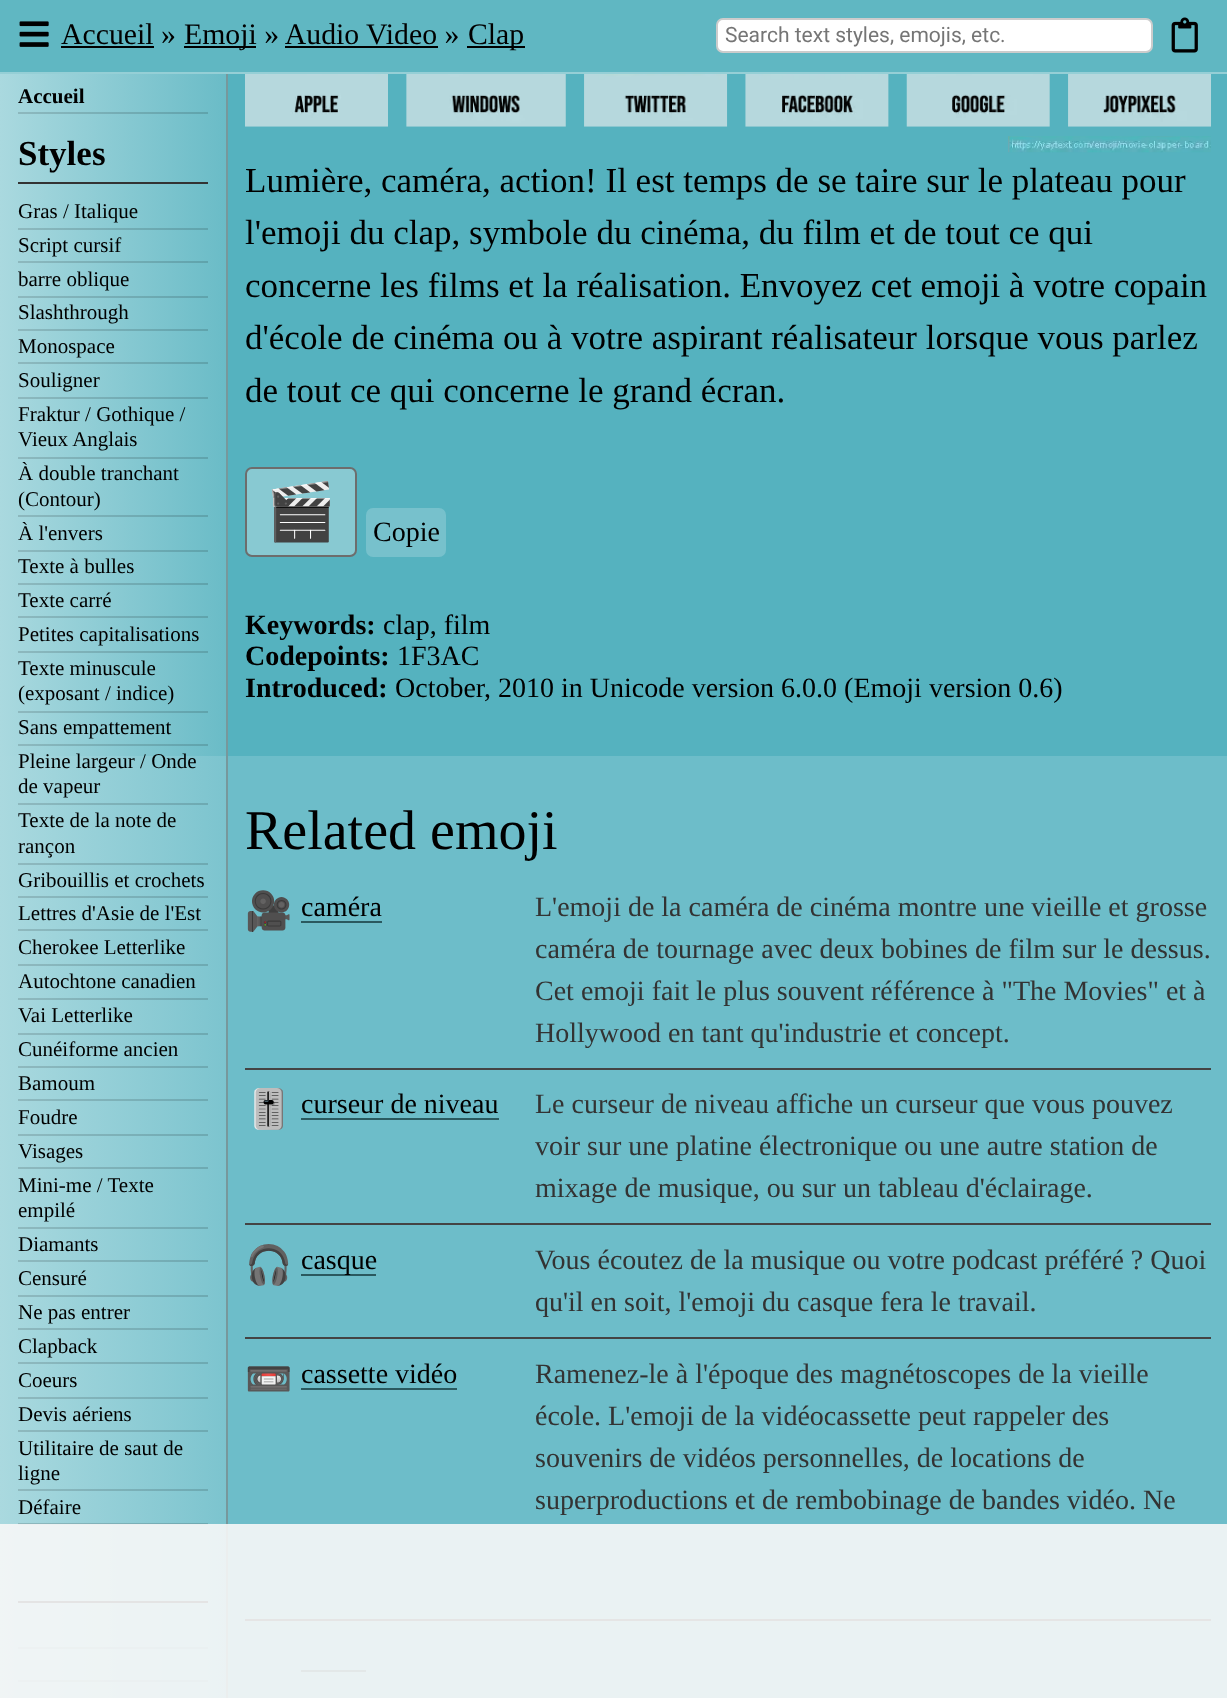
<svg xmlns="http://www.w3.org/2000/svg" width="1227" height="1698" viewBox="0 0 1227 1698">
  <style>
    .t1 { font: 29.75px Liberation Serif; fill: #000; }
    .t2 { font: 21px Roboto; fill: #757575; }
    .t3 { font: 35px Liberation Serif; fill: #000; }
    .t4 { font: 56px Noto Color Emoji; fill: #000; }
    .t5 { font: 28px Liberation Serif; fill: #000; }
    .t6 { font: bold 28px Liberation Serif; fill: #000; }
    .t7 { font: 56px Liberation Serif; fill: #000; }
    .t8 { font: 38px Noto Color Emoji; fill: #000; }
    .t9 { font: 28px Liberation Serif; fill: #333; }
    .t10 { font: bold 21px Liberation Serif; fill: #000; }
    .t11 { font: bold 35px Liberation Serif; fill: #000; }
    .t12 { font: 21px Liberation Serif; fill: #000; }
  </style>
  <defs>
    <linearGradient id="g1" gradientUnits="userSpaceOnUse" x1="0" y1="881" x2="226" y2="881"><stop offset="0" stop-color="#aad9df"/><stop offset="1" stop-color="#aad9df" stop-opacity="0.25"/></linearGradient>
  </defs>
  <rect width="100%" height="100%" fill="#55b2bf"/>
  <rect x="0" y="0" width="1227" height="72" fill="#60b7c2"/>
  <rect x="0" y="72" width="1227" height="2" fill="#95cfd6"/>
  <image x="19" y="21" width="30" height="26" href="images/1.png"/>
  <text x="61" y="44" class="t1">Accueil »</text>
  <rect x="61" y="46" width="93" height="2" fill="#000"/>
  <rect x="184" y="46" width="72" height="2" fill="#000"/>
  <text x="184" y="44" class="t1">Emoji » Audio Video »</text>
  <rect x="467" y="46" width="58" height="2" fill="#000"/>
  <text x="468" y="44" class="t1">Clap</text>
  <rect x="285" y="46" width="153" height="2" fill="#000"/>
  <rect x="717" y="19" width="435" height="33" rx="6" fill="#fff" stroke="#ccc" stroke-width="2"/>
  <text x="725" y="42" class="t2">Search text styles, emojis, etc.</text>
  <image x="1171" y="17" width="27" height="36" href="images/2.png"/>
  <image x="245" y="74" width="966" height="79" href="images/3.png"/>
  <text x="245" y="192" class="t3">Lumière, caméra, action! Il est temps de se taire sur le plateau pour</text>
  <text x="245" y="244" class="t3">l'emoji du clap, symbole du cinéma, du film et de tout ce qui</text>
  <text x="245" y="297" class="t3">concerne les films et la réalisation. Envoyez cet emoji à votre copain</text>
  <text x="245" y="349" class="t3">d'école de cinéma ou à votre aspirant réalisateur lorsque vous parlez</text>
  <text x="245" y="402" class="t3">de tout ce qui concerne le grand écran.</text>
  <rect x="246" y="468" width="110" height="88" rx="6" fill="#88c9d2" stroke="#6d6d6d" stroke-width="2"/>
  <text x="266" y="531" class="t4">🎬</text>
  <rect x="366" y="508" width="80" height="49" rx="7" fill="#77c1cc"/>
  <text x="373" y="541" class="t5">Copie</text>
  <text x="245" y="634" class="t6">Keywords:</text>
  <text x="383" y="634" class="t5">clap, film</text>
  <text x="245" y="665" class="t6">Codepoints:</text>
  <text x="397" y="665" class="t5">1F3AC</text>
  <text x="245" y="697" class="t6">Introduced:</text>
  <text x="395" y="697" class="t5">October, 2010 in Unicode version 6.0.0 (Emoji version 0.6)</text>
  <rect x="2" y="756" width="1225" height="942" fill="#6dbdc9"/>
  <text x="245" y="849" class="t7">Related emoji</text>
  <rect x="245" y="1068" width="966" height="2" fill="#444"/>
  <text x="245" y="924" class="t8">🎥</text>
  <text x="301" y="916" class="t5">caméra</text>
  <rect x="301" y="921" width="81" height="2" fill="#2a595f"/>
  <text x="535" y="916" class="t9">L'emoji de la caméra de cinéma montre une vieille et grosse</text>
  <text x="535" y="958" class="t9">caméra de tournage avec deux bobines de film sur le dessus.</text>
  <text x="535" y="1000" class="t9">Cet emoji fait le plus souvent référence à "The Movies" et à</text>
  <text x="535" y="1042" class="t9">Hollywood en tant qu'industrie et concept.</text>
  <rect x="245" y="1223" width="966" height="2" fill="#444"/>
  <text x="245" y="1122" class="t8">🎚️</text>
  <text x="301" y="1113" class="t5">curseur de niveau</text>
  <rect x="301" y="1118" width="198" height="2" fill="#2a595f"/>
  <text x="535" y="1113" class="t9">Le curseur de niveau affiche un curseur que vous pouvez</text>
  <text x="535" y="1155" class="t9">voir sur une platine électronique ou une autre station de</text>
  <text x="535" y="1197" class="t9">mixage de musique, ou sur un tableau d'éclairage.</text>
  <rect x="245" y="1337" width="966" height="2" fill="#444"/>
  <text x="245" y="1278" class="t8">🎧</text>
  <rect x="301" y="1274" width="75" height="2" fill="#2a595f"/>
  <text x="301" y="1269" class="t5">casque</text>
  <text x="535" y="1269" class="t9">Vous écoutez de la musique ou votre podcast préféré ? Quoi</text>
  <text x="535" y="1311" class="t9">qu'il en soit, l'emoji du casque fera le travail.</text>
  <rect x="245" y="1619" width="966" height="2" fill="#444"/>
  <text x="245" y="1392" class="t8">📼</text>
  <text x="301" y="1383" class="t5">cassette vidéo</text>
  <rect x="301" y="1388" width="156" height="2" fill="#2a595f"/>
  <text x="535" y="1383" class="t9">Ramenez-le à l'époque des magnétoscopes de la vieille</text>
  <text x="535" y="1425" class="t9">école. L'emoji de la vidéocassette peut rappeler des</text>
  <text x="535" y="1467" class="t9">souvenirs de vidéos personnelles, de locations de</text>
  <text x="535" y="1509" class="t9">superproductions et de rembobinage de bandes vidéo. Ne</text>
  <rect x="301" y="1670" width="65" height="2" fill="#2a595f"/>
  <rect x="0" y="74" width="226" height="1624" fill="url(#g1)"/>
  <rect x="226" y="74" width="2" height="1624" fill="#77989c"/>
  <rect x="18" y="112" width="190" height="2" fill="#00000024"/>
  <text x="18" y="103" class="t10">Accueil</text>
  <rect x="18" y="182" width="190" height="2" fill="#333"/>
  <text x="18" y="165" class="t11">Styles</text>
  <rect x="18" y="228" width="190" height="2" fill="#00000024"/>
  <text x="18" y="218" class="t12">Gras / Italique</text>
  <rect x="18" y="261" width="190" height="2" fill="#00000024"/>
  <text x="18" y="252" class="t12">Script cursif</text>
  <rect x="18" y="296" width="190" height="2" fill="#00000024"/>
  <text x="18" y="286" class="t12">barre oblique</text>
  <rect x="18" y="329" width="190" height="2" fill="#00000024"/>
  <text x="18" y="319" class="t12">Slashthrough</text>
  <rect x="18" y="362" width="190" height="2" fill="#00000024"/>
  <text x="18" y="353" class="t12">Monospace</text>
  <rect x="18" y="397" width="190" height="2" fill="#00000024"/>
  <text x="18" y="387" class="t12">Souligner</text>
  <rect x="18" y="457" width="190" height="2" fill="#00000024"/>
  <text x="18" y="421" class="t12">Fraktur / Gothique /</text>
  <text x="18" y="446" class="t12">Vieux Anglais</text>
  <rect x="18" y="515" width="190" height="2" fill="#00000024"/>
  <text x="18" y="480" class="t12">À double tranchant</text>
  <text x="18" y="506" class="t12">(Contour)</text>
  <rect x="18" y="550" width="190" height="2" fill="#00000024"/>
  <text x="18" y="540" class="t12">À l'envers</text>
  <rect x="18" y="583" width="190" height="2" fill="#00000024"/>
  <text x="18" y="573" class="t12">Texte à bulles</text>
  <rect x="18" y="616" width="190" height="2" fill="#00000024"/>
  <text x="18" y="607" class="t12">Texte carré</text>
  <rect x="18" y="651" width="190" height="2" fill="#00000024"/>
  <text x="18" y="641" class="t12">Petites capitalisations</text>
  <rect x="18" y="711" width="190" height="2" fill="#00000024"/>
  <text x="18" y="675" class="t12">Texte minuscule</text>
  <text x="18" y="700" class="t12">(exposant / indice)</text>
  <rect x="18" y="744" width="190" height="2" fill="#00000024"/>
  <text x="18" y="734" class="t12">Sans empattement</text>
  <rect x="18" y="803" width="190" height="2" fill="#00000024"/>
  <text x="18" y="768" class="t12">Pleine largeur / Onde</text>
  <text x="18" y="793" class="t12">de vapeur</text>
  <rect x="18" y="863" width="190" height="2" fill="#00000024"/>
  <text x="18" y="827" class="t12">Texte de la note de</text>
  <text x="18" y="853" class="t12">rançon</text>
  <rect x="18" y="896" width="190" height="2" fill="#00000024"/>
  <text x="18" y="887" class="t12">Gribouillis et crochets</text>
  <rect x="18" y="929" width="190" height="2" fill="#00000024"/>
  <text x="18" y="920" class="t12">Lettres d'Asie de l'Est</text>
  <rect x="18" y="964" width="190" height="2" fill="#00000024"/>
  <text x="18" y="954" class="t12">Cherokee Letterlike</text>
  <rect x="18" y="998" width="190" height="2" fill="#00000024"/>
  <text x="18" y="988" class="t12">Autochtone canadien</text>
  <rect x="18" y="1033" width="190" height="2" fill="#00000024"/>
  <text x="18" y="1022" class="t12">Vai Letterlike</text>
  <rect x="18" y="1066" width="190" height="2" fill="#00000024"/>
  <text x="18" y="1056" class="t12">Cunéiforme ancien</text>
  <rect x="18" y="1099" width="190" height="2" fill="#00000024"/>
  <text x="18" y="1090" class="t12">Bamoum</text>
  <rect x="18" y="1134" width="190" height="2" fill="#00000024"/>
  <text x="18" y="1124" class="t12">Foudre</text>
  <rect x="18" y="1167" width="190" height="2" fill="#00000024"/>
  <text x="18" y="1158" class="t12">Visages</text>
  <rect x="18" y="1227" width="190" height="2" fill="#00000024"/>
  <text x="18" y="1192" class="t12">Mini-me / Texte</text>
  <text x="18" y="1217" class="t12">empilé</text>
  <rect x="18" y="1260" width="190" height="2" fill="#00000024"/>
  <text x="18" y="1251" class="t12">Diamants</text>
  <rect x="18" y="1295" width="190" height="2" fill="#00000024"/>
  <text x="18" y="1285" class="t12">Censuré</text>
  <rect x="18" y="1328" width="190" height="2" fill="#00000024"/>
  <text x="18" y="1319" class="t12">Ne pas entrer</text>
  <rect x="18" y="1362" width="190" height="2" fill="#00000024"/>
  <text x="18" y="1353" class="t12">Clapback</text>
  <rect x="18" y="1397" width="190" height="2" fill="#00000024"/>
  <text x="18" y="1387" class="t12">Coeurs</text>
  <rect x="18" y="1430" width="190" height="2" fill="#00000024"/>
  <text x="18" y="1421" class="t12">Devis aériens</text>
  <rect x="18" y="1489" width="190" height="2" fill="#00000024"/>
  <text x="18" y="1455" class="t12">Utilitaire de saut de</text>
  <text x="18" y="1480" class="t12">ligne</text>
  <rect x="18" y="1523" width="190" height="2" fill="#00000024"/>
  <text x="18" y="1514" class="t12">Défaire</text>
  <rect x="18" y="1601" width="190" height="2" fill="#333"/>
  <rect x="18" y="1647" width="190" height="2" fill="#00000024"/>
  <rect x="18" y="1680" width="190" height="2" fill="#00000024"/>
  <rect x="0" y="1524" width="1227" height="174" fill="#f7f7f7e6"/>
</svg>
